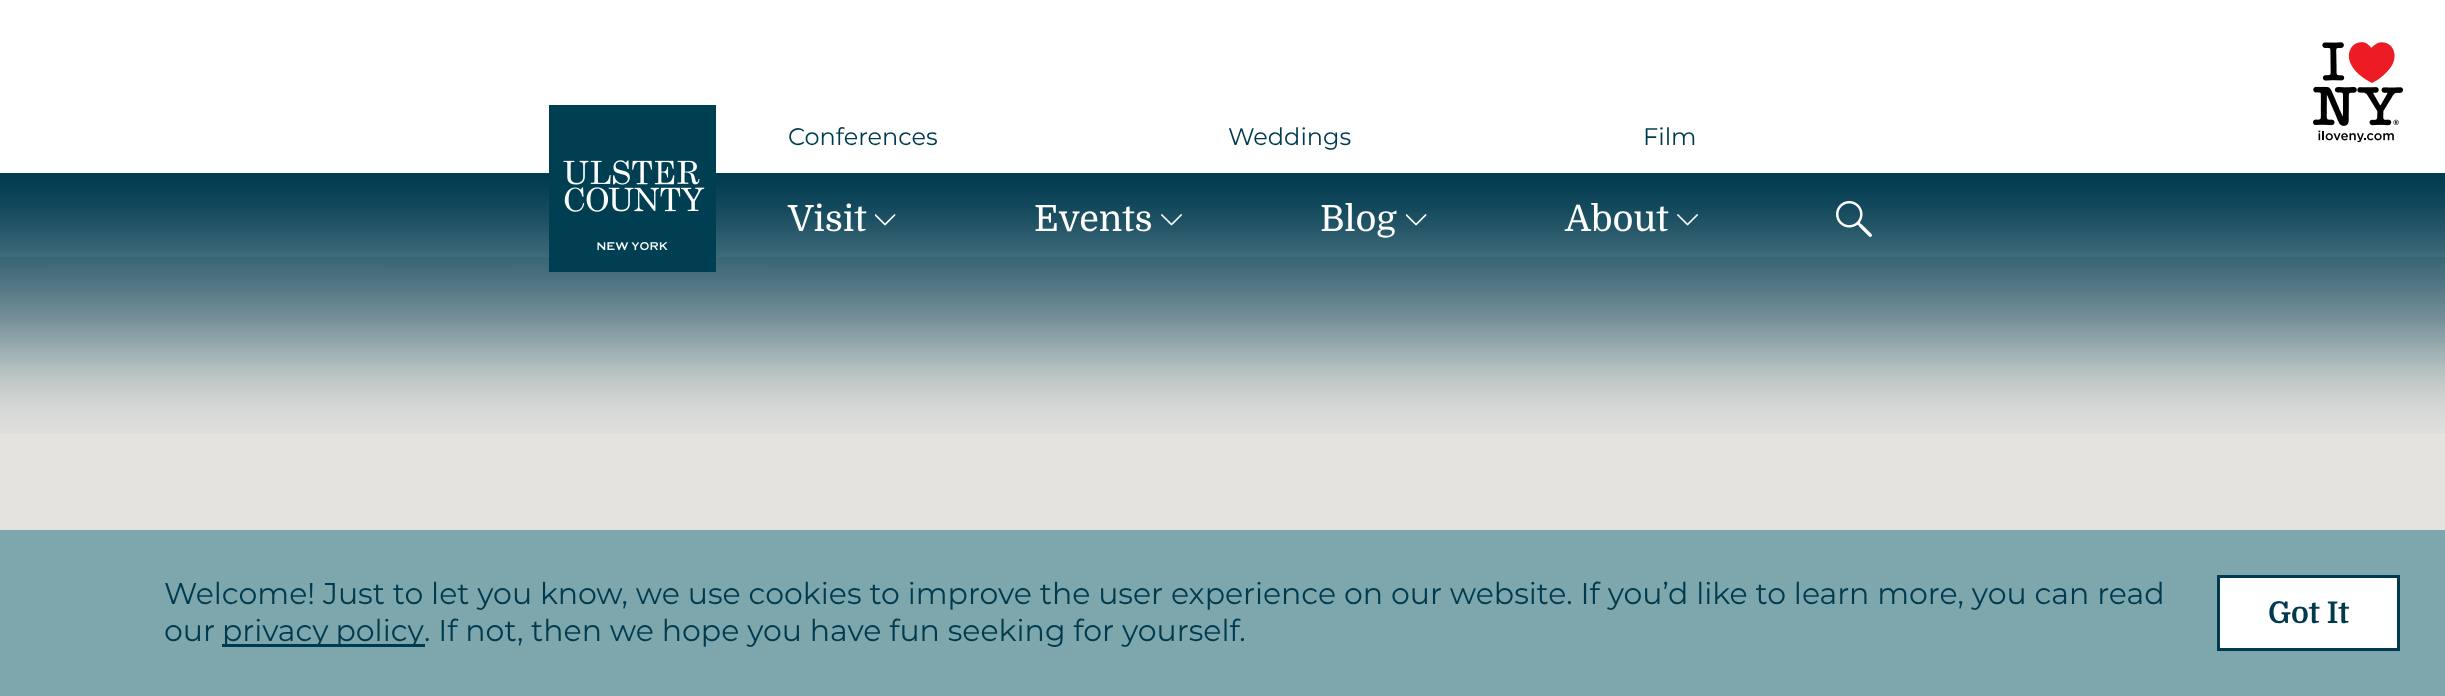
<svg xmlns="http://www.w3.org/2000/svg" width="2445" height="696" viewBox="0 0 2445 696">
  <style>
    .t1 { font: 100 24px Montserrat; fill: #003a4f; }
    .t2 { font: 36px Domine; fill: #fff; }
    .t3 { font: 100 30px Montserrat; fill: #003a4f; }
    .t4 { font: bold 30px Domine; fill: #003a4f; }
  </style>
  <rect width="100%" height="100%" fill="#fff"/>
  <rect x="0" y="257" width="2445" height="273" fill="#e5e3df"/>
  <image x="0" y="173" width="2445" height="261" href="images/3.png"/>
  <image x="549" y="105" width="167" height="167" href="images/1.png"/>
  <text x="788" y="145" class="t1">Conferences</text>
  <text x="1228" y="145" class="t1">Weddings</text>
  <text x="1643" y="145" class="t1">Film</text>
  <image x="2313" y="42" width="90" height="100" href="images/2.png"/>
  <text x="788" y="231" class="t2">Visit</text>
  <image x="875" y="214" width="21" height="12" href="images/4.png"/>
  <text x="1034" y="231" class="t2">Events</text>
  <image x="1161" y="214" width="21" height="12" href="images/5.png"/>
  <text x="1320" y="231" class="t2">Blog</text>
  <image x="1406" y="214" width="21" height="12" href="images/4.png"/>
  <text x="1565" y="231" class="t2">About</text>
  <image x="1677" y="214" width="21" height="12" href="images/5.png"/>
  <image x="1836" y="201" width="36" height="36" href="images/6.png"/>
  <rect x="0" y="530" width="2445" height="166" fill="#7da7ad"/>
  <text x="164" y="604" class="t3">Welcome! Just to let you know, we use cookies to improve the user experience on our website. If you’d like to learn more, you can read</text>
  <text x="164" y="641" class="t3">our</text>
  <rect x="222" y="644" width="203" height="3" fill="#003a4f"/>
  <text x="222" y="641" word-spacing="-1" class="t3">privacy policy</text>
  <text x="424" y="641" class="t3">. If not, then we hope you have fun seeking for yourself.</text>
  <rect x="2218.5" y="576.5" width="180" height="73" fill="#fff" stroke="#003a4f" stroke-width="3"/>
  <text x="2268" y="623" class="t4">Got It</text>
</svg>
